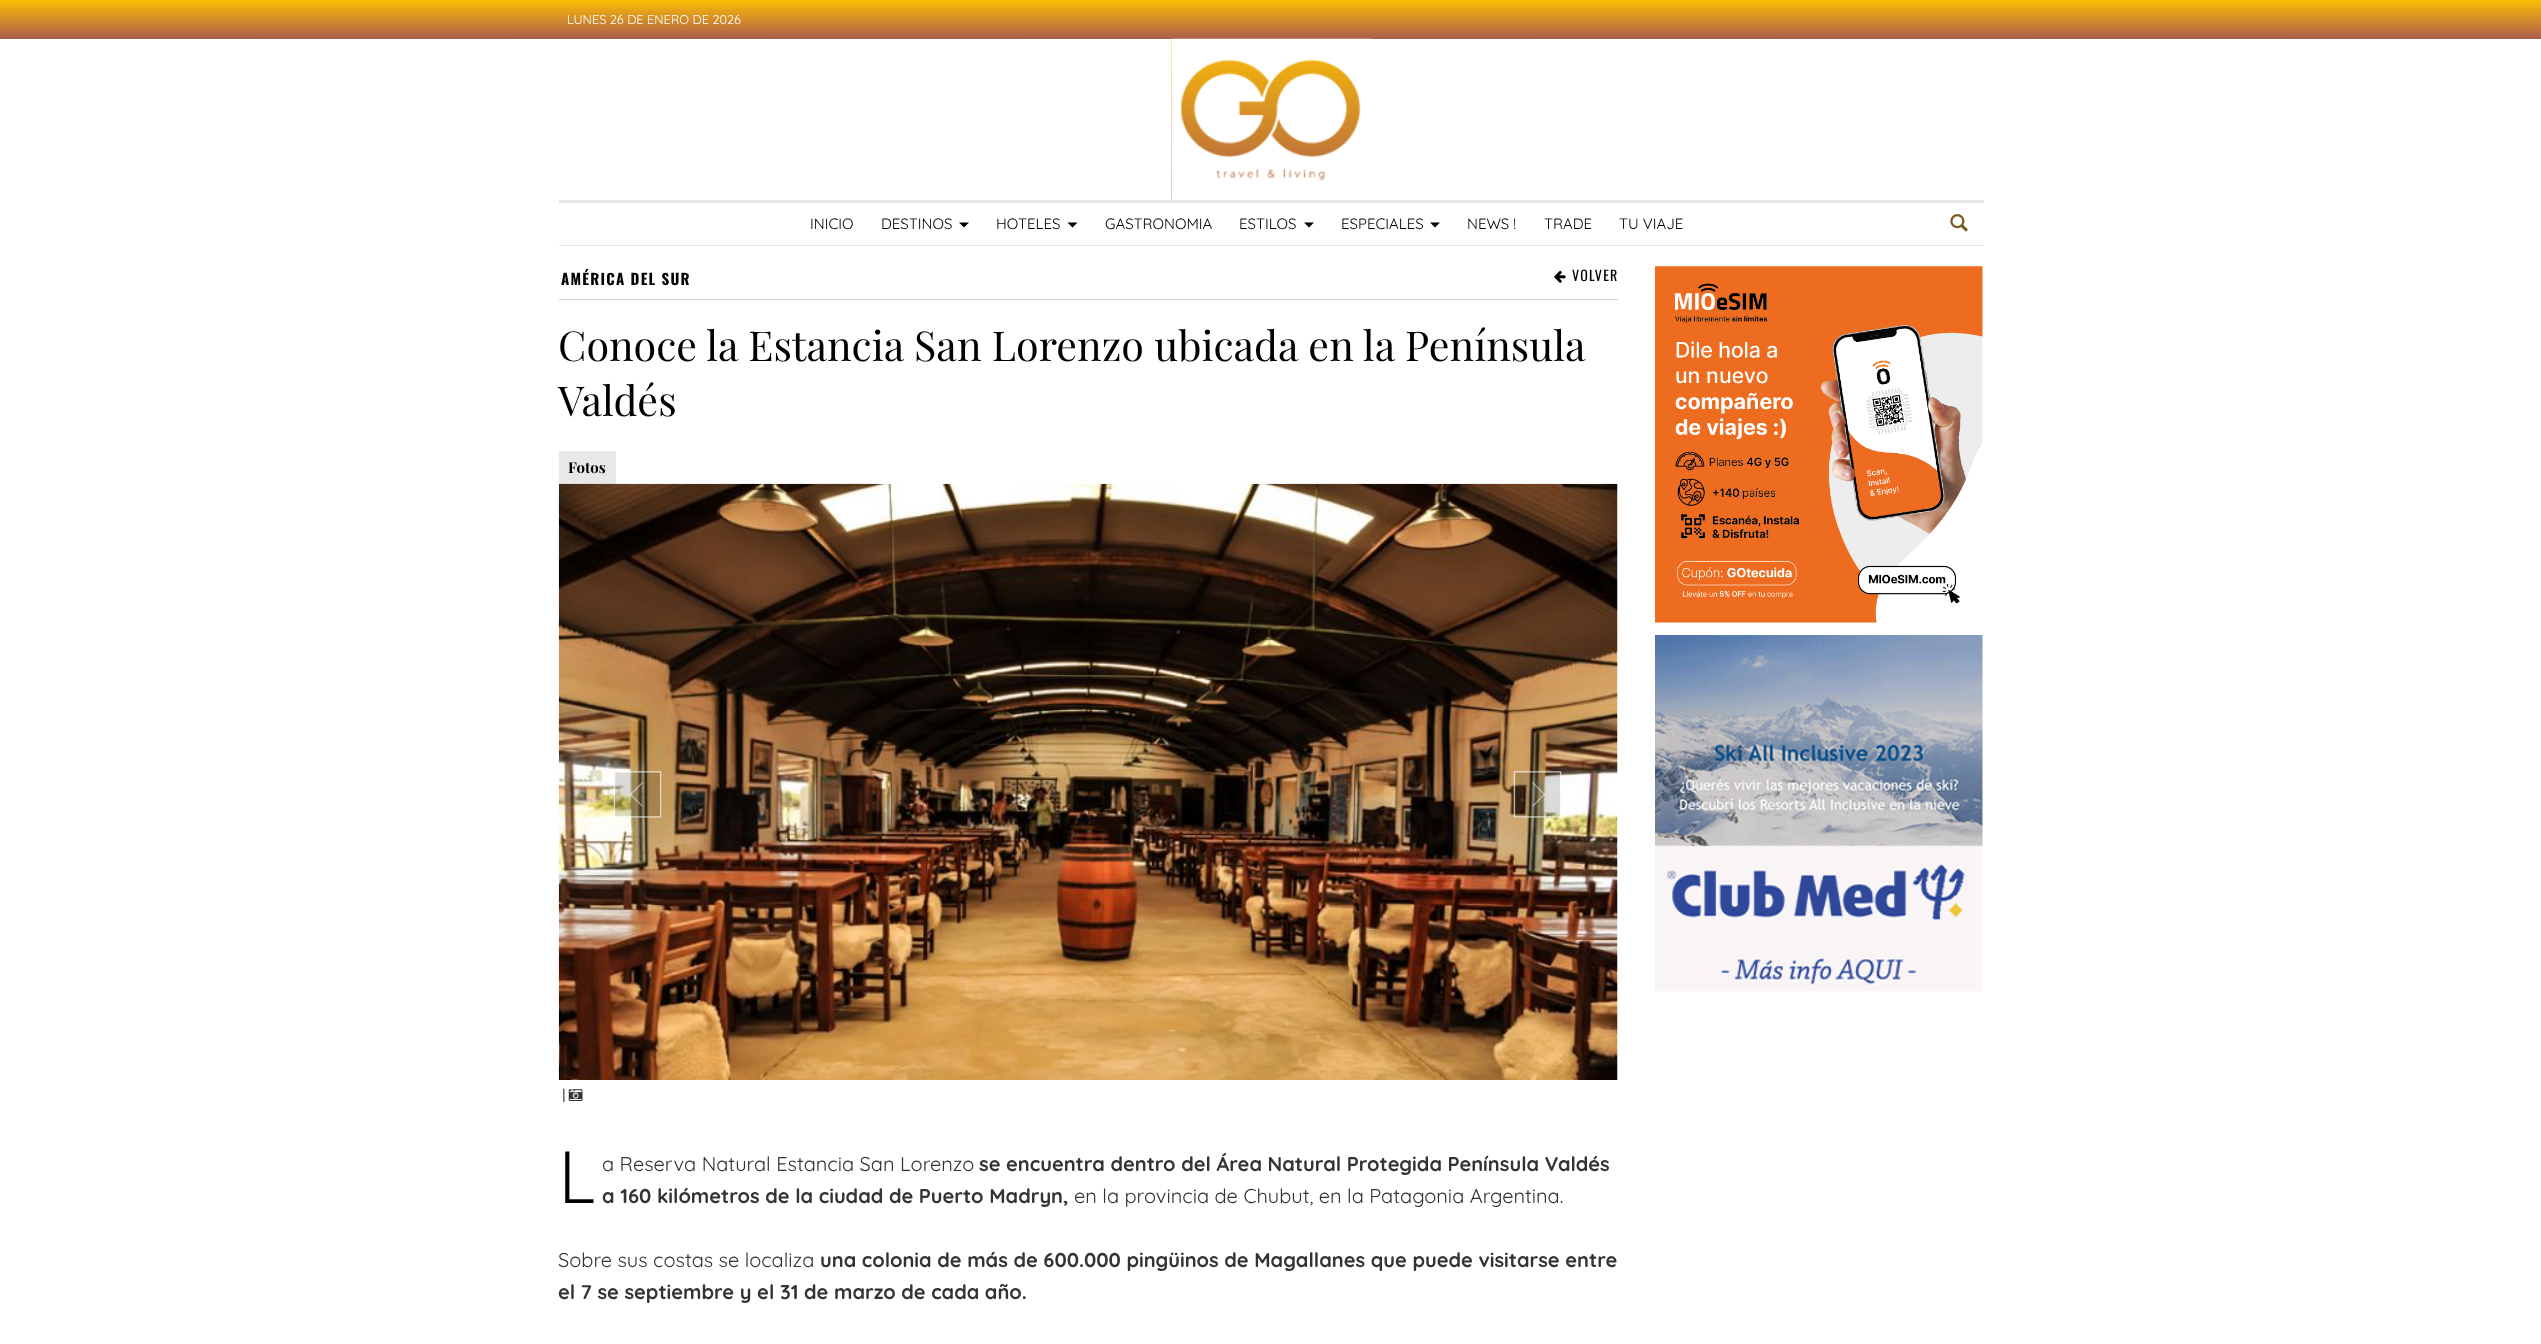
<svg xmlns="http://www.w3.org/2000/svg" width="2541" height="1344" viewBox="0 0 2541 1344">
  <style>
    .t1 { font: 12.75px Quicksand; fill: #fff; }
    .t2 { font: 15px Quicksand; fill: #000; }
    .t3 { font: bold 15px Oswald; letter-spacing: 1.25px; fill: #000; }
    .t4 { font: 14px Oswald; letter-spacing: 1.25px; fill: #000; }
    .t5 { font: 41.25px Playfair Display; fill: #000; }
    .t6 { font: bold 15px Playfair Display; fill: #000; }
    .t7 { font: 14px Liberation Sans; fill: #333; }
    .t8 { font: 300 72px Noto Sans; fill: #000; }
    .t9 { font: 20px Quicksand; fill: #333; }
    .t10 { font: bold 20px Quicksand; fill: #333; }
  </style>
  <defs>
    <linearGradient id="g1" gradientUnits="userSpaceOnUse" x1="1271" y1="0" x2="1271" y2="39"><stop offset="0" stop-color="#fcbd05"/><stop offset="1" stop-color="#aa5c4b"/></linearGradient>
    <linearGradient id="g2" gradientUnits="userSpaceOnUse" x1="1271" y1="39" x2="1271" y2="200"><stop offset="0" stop-color="#fcbd05"/><stop offset="1" stop-color="#aa5c4b"/></linearGradient>
  </defs>
  <rect width="100%" height="100%" fill="#fff"/>
  <rect x="0" y="0" width="2541" height="39" fill="url(#g1)"/>
  <text x="567" y="24" class="t1">LUNES 26 DE ENERO DE 2026</text>
  <rect x="1171" y="39" width="190" height="161" fill="url(#g2)"/>
  <image x="1171" y="38" width="201" height="162" href="images/1.png"/>
  <rect x="559" y="200" width="1425" height="3" fill="#e7e7e7"/>
  <rect x="559" y="245" width="1425" height="1" fill="#e7e7e7"/>
  <text x="810" y="229" class="t2">INICIO</text>
  <text x="881" y="229" class="t2">DESTINOS</text>
  <path d="M959 222.5H969L964 227.5Z" fill="#000"/>
  <text x="996" y="229" class="t2">HOTELES</text>
  <path d="M1067.5 222.5H1077.5L1072.5 227.5Z" fill="#000"/>
  <text x="1105" y="229" class="t2">GASTRONOMIA</text>
  <text x="1239" y="229" class="t2">ESTILOS</text>
  <path d="M1304 222.5H1314L1309 227.5Z" fill="#000"/>
  <text x="1341" y="229" class="t2">ESPECIALES</text>
  <path d="M1430 222.5H1440L1435 227.5Z" fill="#000"/>
  <text x="1467" y="229" class="t2">NEWS !</text>
  <text x="1544" y="229" class="t2">TRADE</text>
  <text x="1619" y="229" class="t2">TU VIAJE</text>
  <image x="1950" y="214" width="18" height="18" href="images/2.png"/>
  <rect x="559" y="299" width="1059" height="1" fill="#d1d3d4"/>
  <text x="561" y="285" class="t3">AMÉRICA DEL SUR</text>
  <image x="1554" y="270" width="12" height="13" href="images/3.png"/>
  <text x="1572" y="281" class="t4">VOLVER</text>
  <text x="558" y="361" class="t5">Conoce la Estancia San Lorenzo ubicada en la Península</text>
  <text x="558" y="416" class="t5">Valdés</text>
  <rect x="559" y="451" width="57" height="33" fill="#e8e8e8"/>
  <text x="568" y="473" class="t6">Fotos</text>
  <image x="558" y="483" width="1060" height="597" href="images/6.png"/>
  <image x="613" y="771" width="49" height="47" href="images/4.png"/>
  <image x="1513" y="771" width="49" height="47" href="images/5.png"/>
  <text x="562" y="1099" class="t7">|</text>
  <image x="568" y="1089" width="15" height="12" href="images/7.png"/>
  <text x="558" y="1203" class="t8">L</text>
  <text x="602" y="1171" class="t9">a Reserva Natural Estancia San Lorenzo</text>
  <text x="979" y="1171" class="t10">se encuentra dentro del Área Natural Protegida Península Valdés</text>
  <text x="602" y="1203" class="t10">a 160 kilómetros de la ciudad de Puerto Madryn,</text>
  <text x="1074" y="1203" class="t9">en la provincia de Chubut, en la Patagonia Argentina.</text>
  <text x="558" y="1267" class="t9">Sobre sus costas se localiza</text>
  <text x="820" y="1267" class="t10">una colonia de más de 600.000 pingüinos de Magallanes que puede visitarse entre</text>
  <text x="558" y="1299" class="t10">el 7 se septiembre y el 31 de marzo de cada año.</text>
  <image x="1655" y="266" width="328" height="357" href="images/8.png"/>
  <image x="1655" y="635" width="328" height="357" href="images/9.png"/>
</svg>
